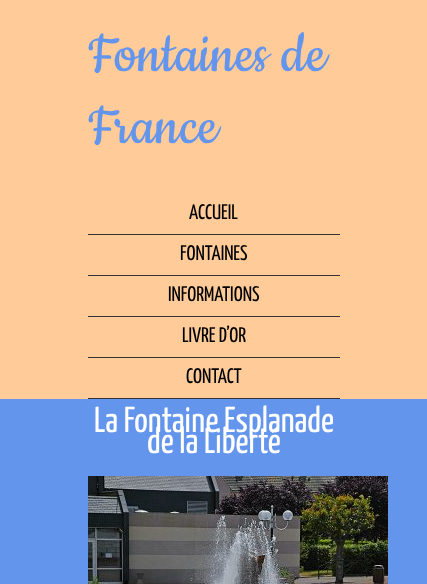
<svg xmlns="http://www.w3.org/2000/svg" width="427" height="584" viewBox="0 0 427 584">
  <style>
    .t1 { font: 65px Cookie; fill: #6495ed; }
    .t2 { font: 21px Yanone Kaffeesatz; fill: #000; }
    .t3 { font: 36px Yanone Kaffeesatz; fill: #fff; }
  </style>
  <rect width="100%" height="100%" fill="#6495ed"/>
  <rect x="0" y="0" width="427" height="399" fill="#fc9"/>
  <text x="88" y="71" class="t1">Fontaines de</text>
  <text x="88" y="143" class="t1">France</text>
  <rect x="88" y="234" width="252" height="1" fill="#333"/>
  <text x="189" y="219" class="t2">ACCUEIL</text>
  <rect x="88" y="275" width="252" height="1" fill="#333"/>
  <text x="180" y="260" class="t2">FONTAINES</text>
  <rect x="88" y="316" width="252" height="1" fill="#333"/>
  <text x="168" y="301" class="t2">INFORMATIONS</text>
  <rect x="88" y="357" width="252" height="1" fill="#333"/>
  <text x="182" y="342" class="t2">LIVRE D’OR</text>
  <rect x="88" y="398" width="252" height="1" fill="#333"/>
  <text x="186" y="383" class="t2">CONTACT</text>
  <text x="94" y="432" class="t3">La Fontaine Esplanade</text>
  <text x="147" y="453" class="t3">de la Liberté</text>
  <image x="88" y="476" width="300" height="108" href="images/1.png"/>
</svg>
